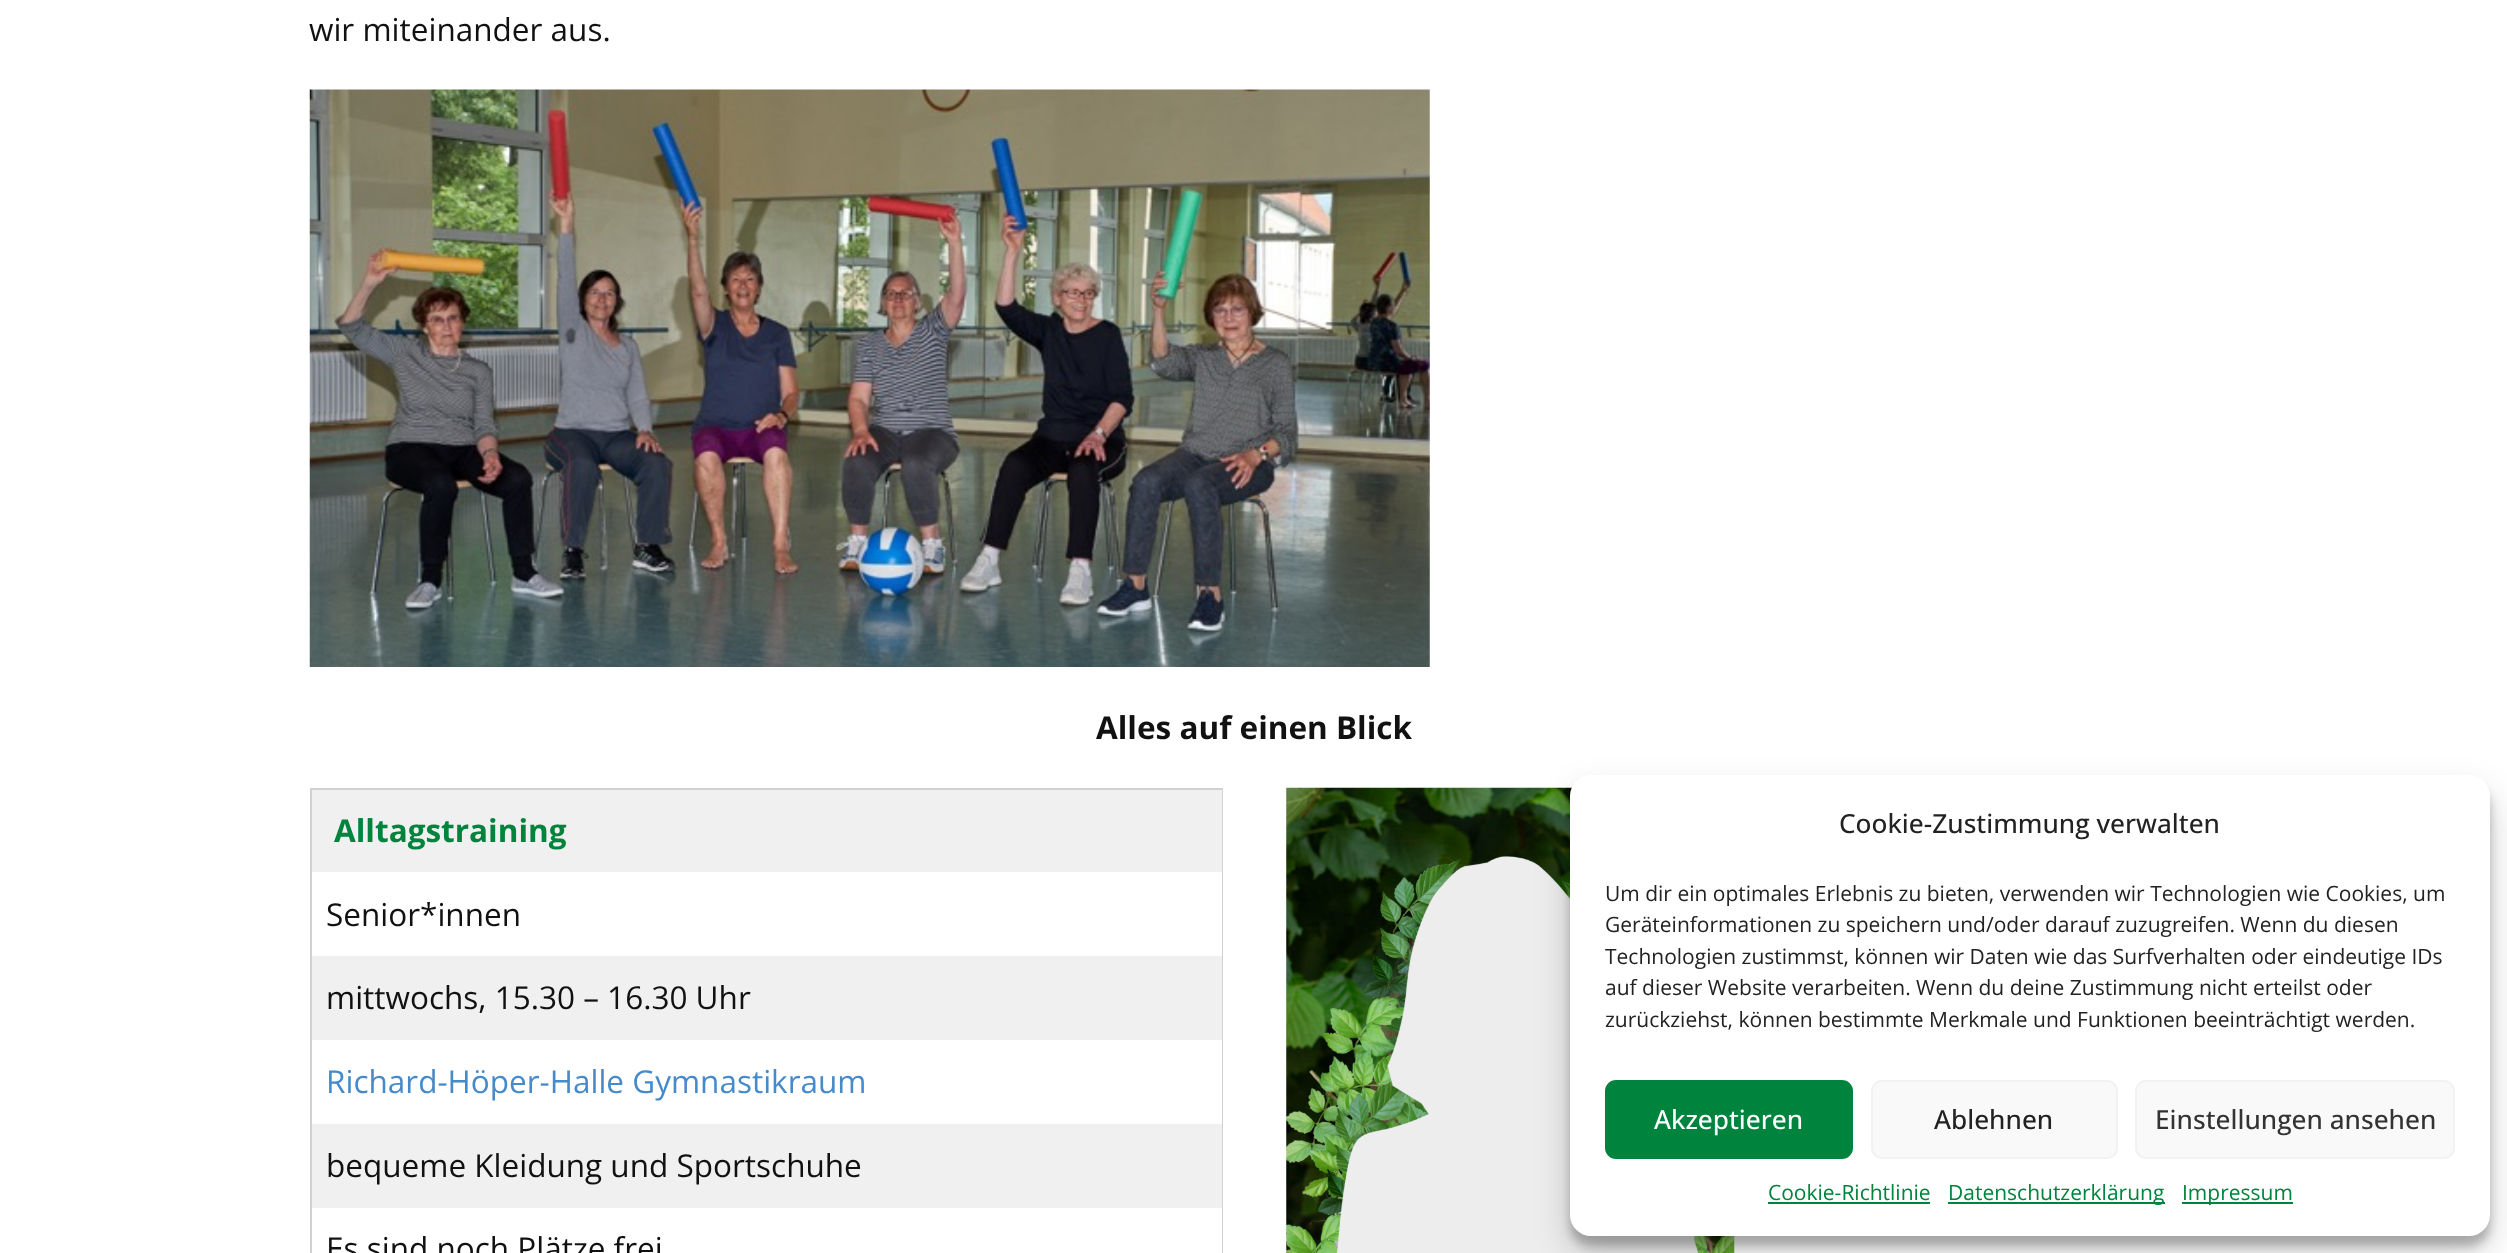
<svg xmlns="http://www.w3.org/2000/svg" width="2507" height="1253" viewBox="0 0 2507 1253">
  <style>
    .t1 { font: 31.5px Open Sans; fill: #111; }
    .t2 { font: bold 31.5px Open Sans; fill: #111; }
    .t3 { font: bold 31.5px Open Sans; fill: #00843d; }
    .t4 { font: 31.5px Open Sans; fill: #478ac9; }
    .t5 { font: 500 26.25px Open Sans; fill: #222; }
    .t6 { font: 21px Open Sans; fill: #222; }
    .t7 { font: 500 26.25px Open Sans; fill: #fff; }
    .t8 { font: 500 26.25px Open Sans; fill: #333; }
    .t9 { font: 21px Open Sans; fill: #00843d; }
  </style>
  <rect width="100%" height="100%" fill="#fff"/>
  <text x="309" y="41" class="t1">wir miteinander aus.</text>
  <image x="309" y="89" width="1121" height="578" href="images/1.png"/>
  <text x="1096" y="739" class="t2">Alles auf einen Blick</text>
  <rect x="310" y="788" width="913" height="2" fill="#d1d1d1"/>
  <rect x="1222" y="788" width="1" height="465" fill="#d1d1d1"/>
  <rect x="310" y="788" width="2" height="465" fill="#d1d1d1"/>
  <rect x="312" y="790" width="910" height="82" fill="#f0f0f0"/>
  <text x="334" y="842" class="t3">Alltagstraining</text>
  <text x="326" y="926" class="t1">Senior*innen</text>
  <rect x="312" y="956" width="910" height="84" fill="#f0f0f0"/>
  <text x="326" y="1009" class="t1">mittwochs, 15.30 – 16.30 Uhr</text>
  <text x="326" y="1093" class="t4">Richard-Höper-Halle Gymnastikraum</text>
  <rect x="312" y="1124" width="910" height="84" fill="#f0f0f0"/>
  <text x="326" y="1177" class="t1">bequeme Kleidung und Sportschuhe</text>
  <text x="326" y="1260" class="t1">Es sind noch Plätze frei</text>
  <image x="1286" y="787" width="449" height="466" href="images/2.png"/>
  <rect x="1570" y="786" width="920" height="460" rx="21" fill="#0000003b" filter="blur(5px)"/>
  <rect x="1570" y="793" width="920" height="460" rx="21" fill="#00000030" filter="blur(17.5px)"/>
  <rect x="1570" y="775" width="920" height="461" rx="21" fill="#fff"/>
  <text x="1839" y="833" class="t5">Cookie-Zustimmung verwalten</text>
  <text x="1605" y="901" class="t6">Um dir ein optimales Erlebnis zu bieten, verwenden wir Technologien wie Cookies, um</text>
  <text x="1605" y="932" class="t6">Geräteinformationen zu speichern und/oder darauf zuzugreifen. Wenn du diesen</text>
  <text x="1605" y="964" class="t6">Technologien zustimmst, können wir Daten wie das Surfverhalten oder eindeutige IDs</text>
  <text x="1605" y="995" class="t6">auf dieser Website verarbeiten. Wenn du deine Zustimmung nicht erteilst oder</text>
  <text x="1605" y="1027" class="t6">zurückziehst, können bestimmte Merkmale und Funktionen beeinträchtigt werden.</text>
  <rect x="1606" y="1081" width="246" height="77" rx="10" fill="#00843d" stroke="#00843d" stroke-width="2"/>
  <text x="1654" y="1129" class="t7">Akzeptieren</text>
  <rect x="1872" y="1081" width="245" height="77" rx="10" fill="#f9f9f9" stroke="#f2f2f2" stroke-width="2"/>
  <text x="1934" y="1129" class="t5">Ablehnen</text>
  <rect x="2136" y="1081" width="318" height="77" rx="10" fill="#f9f9f9" stroke="#f2f2f2" stroke-width="2"/>
  <text x="2155" y="1129" class="t8">Einstellungen ansehen</text>
  <text x="1768" y="1200" class="t9">Cookie-Richtlinie</text>
  <rect x="1768" y="1202" width="162" height="2" fill="#00843d"/>
  <rect x="1948" y="1202" width="217" height="2" fill="#00843d"/>
  <text x="1948" y="1200" class="t9">Datenschutzerklärung</text>
  <rect x="2182" y="1202" width="111" height="2" fill="#00843d"/>
  <text x="2182" y="1200" class="t9">Impressum</text>
</svg>
